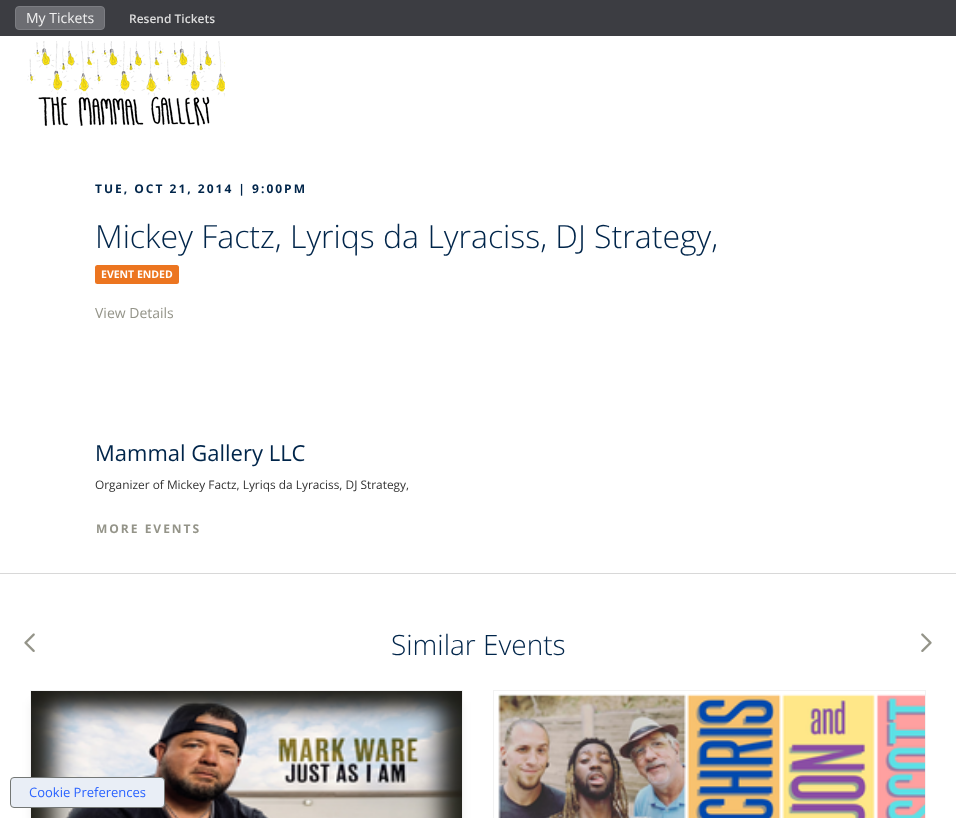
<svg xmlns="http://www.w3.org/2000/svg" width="956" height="818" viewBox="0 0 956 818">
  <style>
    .t1 { font: 14px Open Sans; fill: #f0f0f0; }
    .t2 { font: 600 12px Open Sans; fill: #ddd; }
    .t3 { font: bold 12px Open Sans; letter-spacing: 2px; fill: #00254a; }
    .t4 { font: 300 32px Open Sans; fill: #00254a; }
    .t5 { font: bold 10.5px Open Sans; fill: #fff; }
    .t6 { font: 14px Open Sans; fill: #949489; }
    .t7 { font: 22px Open Sans; fill: #00254a; }
    .t8 { font: 11.9px Open Sans; fill: #333; }
    .t9 { font: bold 12px Open Sans; letter-spacing: 2px; fill: #949489; }
    .t10 { font: 300 28px Open Sans; fill: #00254a; }
    .t11 { font: 13px Open Sans; fill: #2962ff; }
  </style>
  <rect width="100%" height="100%" fill="#fff"/>
  <rect x="0" y="0" width="956" height="36" fill="#3c3d42"/>
  <rect x="15.5" y="6.5" width="89" height="23" rx="3.5" fill="#6c6d72" stroke="#7c7d82"/>
  <text x="26" y="23" class="t1">My Tickets</text>
  <text x="129" y="23" class="t2">Resend Tickets</text>
  <image x="27" y="41" width="198" height="85" href="images/1.png"/>
  <text x="95" y="193" class="t3">TUE, OCT 21, 2014 | 9:00PM</text>
  <text x="95" y="248" class="t4">Mickey Factz, Lyriqs da Lyraciss, DJ Strategy,</text>
  <rect x="95" y="265" width="84" height="19" rx="2.5" fill="#ec7520"/>
  <text x="101" y="278" class="t5">EVENT ENDED</text>
  <text x="95" y="318" class="t6">View Details</text>
  <text x="95" y="461" class="t7">Mammal Gallery LLC</text>
  <text x="95" y="489" class="t8">Organizer of Mickey Factz, Lyriqs da Lyraciss, DJ Strategy,</text>
  <text x="96" y="533" class="t9">MORE EVENTS</text>
  <rect x="0" y="573" width="956" height="1" fill="#d8d8d8"/>
  <image x="24" y="633" width="11" height="19" href="images/2.png"/>
  <text x="391" y="655" class="t10">Similar Events</text>
  <image x="921" y="633" width="11" height="19" href="images/3.png"/>
  <rect x="30" y="702" width="433" height="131" fill="#0000000d" filter="blur(5px)"/>
  <rect x="30.5" y="690.5" width="432" height="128" fill="none" stroke="#f2f2f2"/>
  <image x="31" y="691" width="431" height="127" href="images/4.png"/>
  <rect x="493.5" y="690.5" width="432" height="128" fill="none" stroke="#f2f2f2"/>
  <image x="498" y="694" width="427" height="124" href="images/5.png"/>
  <rect x="10.5" y="777.5" width="154" height="30" rx="3.5" fill="#e9eef6" stroke="#747775"/>
  <text x="29" y="797" class="t11">Cookie Preferences</text>
</svg>
